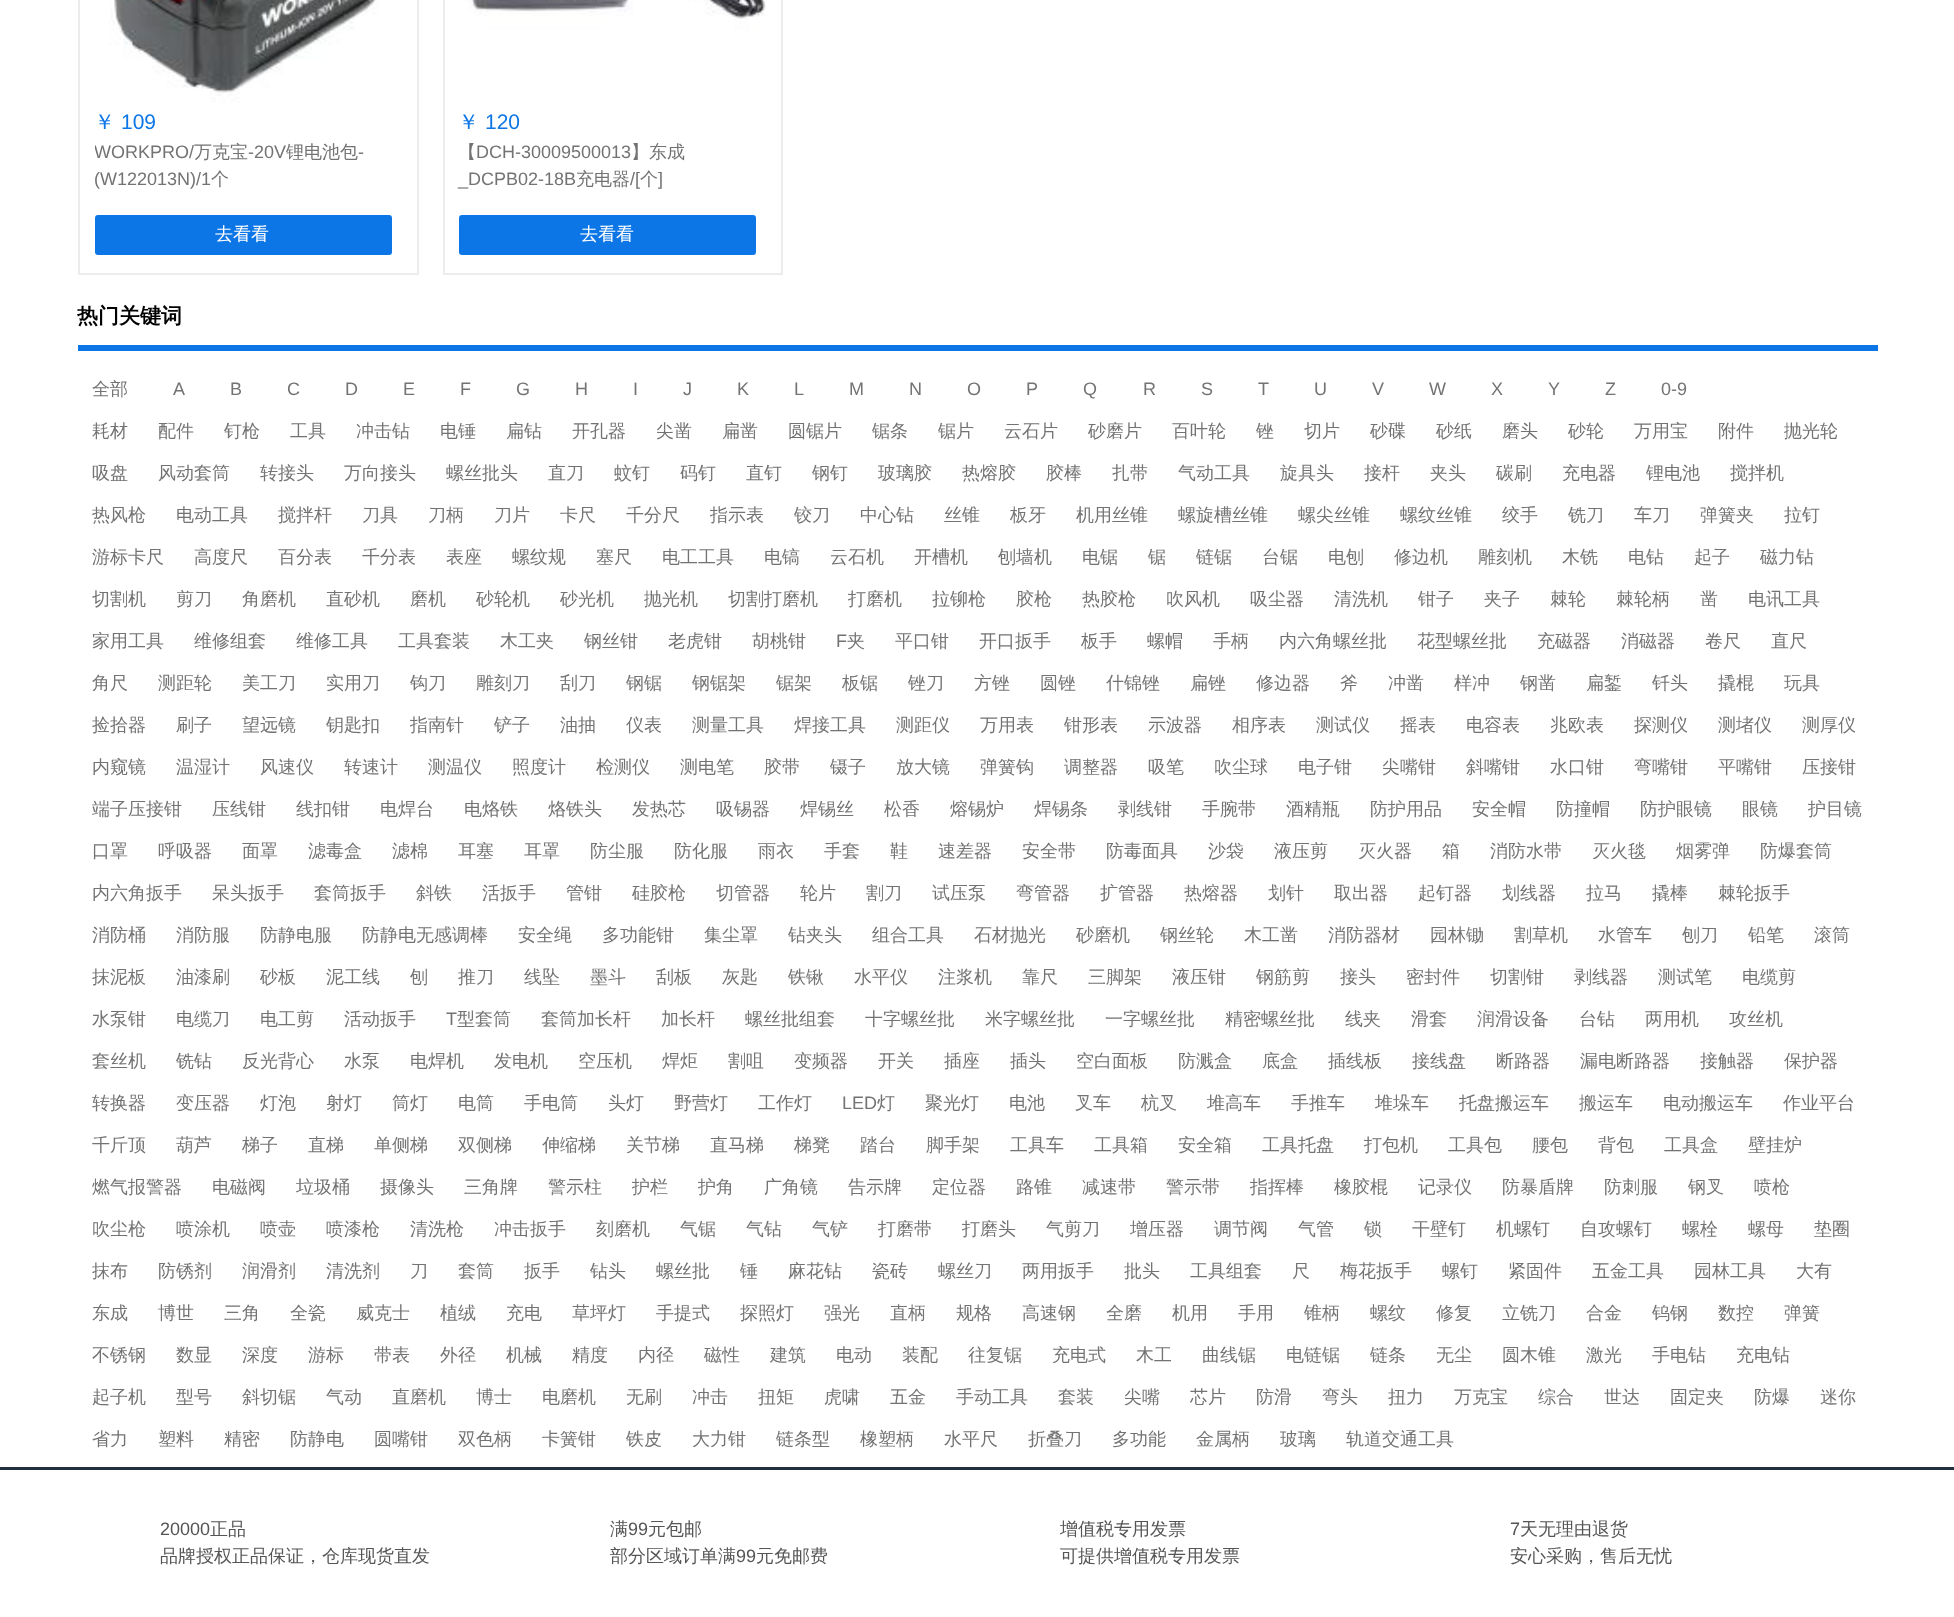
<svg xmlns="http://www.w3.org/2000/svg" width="1954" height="1617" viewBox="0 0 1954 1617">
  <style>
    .t1 { font: 500 21px WenQuanYi Zen Hei; fill: #0d76e7; }
    .t2 { font: 21px Liberation Sans; fill: #0d76e7; }
    .t3 { font: 18px Liberation Sans; fill: #737373; }
    .t4 { font: 500 18px WenQuanYi Zen Hei; fill: #737373; }
    .t5 { font: 500 18px WenQuanYi Zen Hei; fill: #fff; }
    .t6 { font: bold 21px WenQuanYi Zen Hei; fill: #000; }
    .t7 { font: 18px Liberation Sans; fill: #555; }
    .t8 { font: 500 18px WenQuanYi Zen Hei; fill: #555; }
  </style>
  <defs>
    <clipPath id="clip1"><rect x="95" y="138" width="307" height="57"/></clipPath>
  </defs>
  <rect width="100%" height="100%" fill="#fff"/>
  <rect x="79" y="-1" width="339" height="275" fill="none" stroke="#ececec" stroke-width="2"/>
  <image x="109" y="0" width="269" height="103" href="images/1.png"/>
  <text x="94" y="129" class="t1">￥</text>
  <text x="121" y="129" class="t2">109</text>
  <g clip-path="url(#clip1)">
    <text x="94" y="158" class="t3">WORKPRO/</text>
  </g>
  <text x="194" y="158" class="t4">万克宝</text>
  <text x="248" y="158" class="t3">-20V</text>
  <text x="286" y="158" class="t4">锂电池包</text>
  <text x="358" y="158" class="t3">-</text>
  <text x="94" y="185" class="t3">(W122013N)/1</text>
  <text x="211" y="185" class="t4">个</text>
  <rect x="95" y="215" width="297" height="40" rx="3" fill="#0d76e7"/>
  <text x="215" y="240" class="t5">去看看</text>
  <rect x="444" y="-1" width="338" height="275" fill="none" stroke="#ececec" stroke-width="2"/>
  <image x="463" y="0" width="304" height="30" href="images/2.png"/>
  <text x="458" y="129" class="t1">￥</text>
  <text x="485" y="129" class="t2">120</text>
  <text x="458" y="158" class="t4">【</text>
  <text x="476" y="158" class="t3">DCH-30009500013</text>
  <text x="631" y="158" class="t4">】东成</text>
  <text x="458" y="185" class="t3">_DCPB02-18B</text>
  <text x="576" y="185" class="t4">充电器</text>
  <text x="630" y="185" class="t3">/[</text>
  <text x="640" y="185" class="t4">个</text>
  <text x="658" y="185" class="t3">]</text>
  <rect x="459" y="215" width="297" height="40" rx="3" fill="#0d76e7"/>
  <text x="580" y="240" class="t5">去看看</text>
  <text x="77" y="323" class="t6">热门关键词</text>
  <rect x="78" y="345" width="1800" height="6" fill="#0d76e7"/>
  <text x="92" y="395" class="t4">全部</text>
  <text x="173" y="395" class="t3">A</text>
  <text x="230" y="395" class="t3">B</text>
  <text x="287" y="395" class="t3">C</text>
  <text x="345" y="395" class="t3">D</text>
  <text x="403" y="395" class="t3">E</text>
  <text x="460" y="395" class="t3">F</text>
  <text x="516" y="395" class="t3">G</text>
  <text x="575" y="395" class="t3">H</text>
  <text x="633" y="395" class="t3">I</text>
  <text x="683" y="395" class="t3">J</text>
  <text x="737" y="395" class="t3">K</text>
  <text x="794" y="395" class="t3">L</text>
  <text x="849" y="395" class="t3">M</text>
  <text x="909" y="395" class="t3">N</text>
  <text x="967" y="395" class="t3">O</text>
  <text x="1026" y="395" class="t3">P</text>
  <text x="1083" y="395" class="t3">Q</text>
  <text x="1143" y="395" class="t3">R</text>
  <text x="1201" y="395" class="t3">S</text>
  <text x="1258" y="395" class="t3">T</text>
  <text x="1314" y="395" class="t3">U</text>
  <text x="1372" y="395" class="t3">V</text>
  <text x="1429" y="395" class="t3">W</text>
  <text x="1491" y="395" class="t3">X</text>
  <text x="1548" y="395" class="t3">Y</text>
  <text x="1605" y="395" class="t3">Z</text>
  <text x="1661" y="395" class="t3">0-9</text>
  <text x="92" y="437" class="t4">耗材</text>
  <text x="158" y="437" class="t4">配件</text>
  <text x="224" y="437" class="t4">钉枪</text>
  <text x="290" y="437" class="t4">工具</text>
  <text x="356" y="437" class="t4">冲击钻</text>
  <text x="440" y="437" class="t4">电锤</text>
  <text x="506" y="437" class="t4">扁钻</text>
  <text x="572" y="437" class="t4">开孔器</text>
  <text x="656" y="437" class="t4">尖凿</text>
  <text x="722" y="437" class="t4">扁凿</text>
  <text x="788" y="437" class="t4">圆锯片</text>
  <text x="872" y="437" class="t4">锯条</text>
  <text x="938" y="437" class="t4">锯片</text>
  <text x="1004" y="437" class="t4">云石片</text>
  <text x="1088" y="437" class="t4">砂磨片</text>
  <text x="1172" y="437" class="t4">百叶轮</text>
  <text x="1256" y="437" class="t4">锉</text>
  <text x="1304" y="437" class="t4">切片</text>
  <text x="1370" y="437" class="t4">砂碟</text>
  <text x="1436" y="437" class="t4">砂纸</text>
  <text x="1502" y="437" class="t4">磨头</text>
  <text x="1568" y="437" class="t4">砂轮</text>
  <text x="1634" y="437" class="t4">万用宝</text>
  <text x="1718" y="437" class="t4">附件</text>
  <text x="1784" y="437" class="t4">抛光轮</text>
  <text x="92" y="479" class="t4">吸盘</text>
  <text x="158" y="479" class="t4">风动套筒</text>
  <text x="260" y="479" class="t4">转接头</text>
  <text x="344" y="479" class="t4">万向接头</text>
  <text x="446" y="479" class="t4">螺丝批头</text>
  <text x="548" y="479" class="t4">直刀</text>
  <text x="614" y="479" class="t4">蚊钉</text>
  <text x="680" y="479" class="t4">码钉</text>
  <text x="746" y="479" class="t4">直钉</text>
  <text x="812" y="479" class="t4">钢钉</text>
  <text x="878" y="479" class="t4">玻璃胶</text>
  <text x="962" y="479" class="t4">热熔胶</text>
  <text x="1046" y="479" class="t4">胶棒</text>
  <text x="1112" y="479" class="t4">扎带</text>
  <text x="1178" y="479" class="t4">气动工具</text>
  <text x="1280" y="479" class="t4">旋具头</text>
  <text x="1364" y="479" class="t4">接杆</text>
  <text x="1430" y="479" class="t4">夹头</text>
  <text x="1496" y="479" class="t4">碳刷</text>
  <text x="1562" y="479" class="t4">充电器</text>
  <text x="1646" y="479" class="t4">锂电池</text>
  <text x="1730" y="479" class="t4">搅拌机</text>
  <text x="92" y="521" class="t4">热风枪</text>
  <text x="176" y="521" class="t4">电动工具</text>
  <text x="278" y="521" class="t4">搅拌杆</text>
  <text x="362" y="521" class="t4">刀具</text>
  <text x="428" y="521" class="t4">刀柄</text>
  <text x="494" y="521" class="t4">刀片</text>
  <text x="560" y="521" class="t4">卡尺</text>
  <text x="626" y="521" class="t4">千分尺</text>
  <text x="710" y="521" class="t4">指示表</text>
  <text x="794" y="521" class="t4">铰刀</text>
  <text x="860" y="521" class="t4">中心钻</text>
  <text x="944" y="521" class="t4">丝锥</text>
  <text x="1010" y="521" class="t4">板牙</text>
  <text x="1076" y="521" class="t4">机用丝锥</text>
  <text x="1178" y="521" class="t4">螺旋槽丝锥</text>
  <text x="1298" y="521" class="t4">螺尖丝锥</text>
  <text x="1400" y="521" class="t4">螺纹丝锥</text>
  <text x="1502" y="521" class="t4">绞手</text>
  <text x="1568" y="521" class="t4">铣刀</text>
  <text x="1634" y="521" class="t4">车刀</text>
  <text x="1700" y="521" class="t4">弹簧夹</text>
  <text x="1784" y="521" class="t4">拉钉</text>
  <text x="92" y="563" class="t4">游标卡尺</text>
  <text x="194" y="563" class="t4">高度尺</text>
  <text x="278" y="563" class="t4">百分表</text>
  <text x="362" y="563" class="t4">千分表</text>
  <text x="446" y="563" class="t4">表座</text>
  <text x="512" y="563" class="t4">螺纹规</text>
  <text x="596" y="563" class="t4">塞尺</text>
  <text x="662" y="563" class="t4">电工工具</text>
  <text x="764" y="563" class="t4">电镐</text>
  <text x="830" y="563" class="t4">云石机</text>
  <text x="914" y="563" class="t4">开槽机</text>
  <text x="998" y="563" class="t4">刨墙机</text>
  <text x="1082" y="563" class="t4">电锯</text>
  <text x="1148" y="563" class="t4">锯</text>
  <text x="1196" y="563" class="t4">链锯</text>
  <text x="1262" y="563" class="t4">台锯</text>
  <text x="1328" y="563" class="t4">电刨</text>
  <text x="1394" y="563" class="t4">修边机</text>
  <text x="1478" y="563" class="t4">雕刻机</text>
  <text x="1562" y="563" class="t4">木铣</text>
  <text x="1628" y="563" class="t4">电钻</text>
  <text x="1694" y="563" class="t4">起子</text>
  <text x="1760" y="563" class="t4">磁力钻</text>
  <text x="92" y="605" class="t4">切割机</text>
  <text x="176" y="605" class="t4">剪刀</text>
  <text x="242" y="605" class="t4">角磨机</text>
  <text x="326" y="605" class="t4">直砂机</text>
  <text x="410" y="605" class="t4">磨机</text>
  <text x="476" y="605" class="t4">砂轮机</text>
  <text x="560" y="605" class="t4">砂光机</text>
  <text x="644" y="605" class="t4">抛光机</text>
  <text x="728" y="605" class="t4">切割打磨机</text>
  <text x="848" y="605" class="t4">打磨机</text>
  <text x="932" y="605" class="t4">拉铆枪</text>
  <text x="1016" y="605" class="t4">胶枪</text>
  <text x="1082" y="605" class="t4">热胶枪</text>
  <text x="1166" y="605" class="t4">吹风机</text>
  <text x="1250" y="605" class="t4">吸尘器</text>
  <text x="1334" y="605" class="t4">清洗机</text>
  <text x="1418" y="605" class="t4">钳子</text>
  <text x="1484" y="605" class="t4">夹子</text>
  <text x="1550" y="605" class="t4">棘轮</text>
  <text x="1616" y="605" class="t4">棘轮柄</text>
  <text x="1700" y="605" class="t4">凿</text>
  <text x="1748" y="605" class="t4">电讯工具</text>
  <text x="92" y="647" class="t4">家用工具</text>
  <text x="194" y="647" class="t4">维修组套</text>
  <text x="296" y="647" class="t4">维修工具</text>
  <text x="398" y="647" class="t4">工具套装</text>
  <text x="500" y="647" class="t4">木工夹</text>
  <text x="584" y="647" class="t4">钢丝钳</text>
  <text x="668" y="647" class="t4">老虎钳</text>
  <text x="752" y="647" class="t4">胡桃钳</text>
  <text x="836" y="647" class="t3">F</text>
  <text x="847" y="647" class="t4">夹</text>
  <text x="895" y="647" class="t4">平口钳</text>
  <text x="979" y="647" class="t4">开口扳手</text>
  <text x="1081" y="647" class="t4">板手</text>
  <text x="1147" y="647" class="t4">螺帽</text>
  <text x="1213" y="647" class="t4">手柄</text>
  <text x="1279" y="647" class="t4">内六角螺丝批</text>
  <text x="1417" y="647" class="t4">花型螺丝批</text>
  <text x="1537" y="647" class="t4">充磁器</text>
  <text x="1621" y="647" class="t4">消磁器</text>
  <text x="1705" y="647" class="t4">卷尺</text>
  <text x="1771" y="647" class="t4">直尺</text>
  <text x="92" y="689" class="t4">角尺</text>
  <text x="158" y="689" class="t4">测距轮</text>
  <text x="242" y="689" class="t4">美工刀</text>
  <text x="326" y="689" class="t4">实用刀</text>
  <text x="410" y="689" class="t4">钩刀</text>
  <text x="476" y="689" class="t4">雕刻刀</text>
  <text x="560" y="689" class="t4">刮刀</text>
  <text x="626" y="689" class="t4">钢锯</text>
  <text x="692" y="689" class="t4">钢锯架</text>
  <text x="776" y="689" class="t4">锯架</text>
  <text x="842" y="689" class="t4">板锯</text>
  <text x="908" y="689" class="t4">锉刀</text>
  <text x="974" y="689" class="t4">方锉</text>
  <text x="1040" y="689" class="t4">圆锉</text>
  <text x="1106" y="689" class="t4">什锦锉</text>
  <text x="1190" y="689" class="t4">扁锉</text>
  <text x="1256" y="689" class="t4">修边器</text>
  <text x="1340" y="689" class="t4">斧</text>
  <text x="1388" y="689" class="t4">冲凿</text>
  <text x="1454" y="689" class="t4">样冲</text>
  <text x="1520" y="689" class="t4">钢凿</text>
  <text x="1586" y="689" class="t4">扁錾</text>
  <text x="1652" y="689" class="t4">钎头</text>
  <text x="1718" y="689" class="t4">撬棍</text>
  <text x="1784" y="689" class="t4">玩具</text>
  <text x="92" y="731" class="t4">捡拾器</text>
  <text x="176" y="731" class="t4">刷子</text>
  <text x="242" y="731" class="t4">望远镜</text>
  <text x="326" y="731" class="t4">钥匙扣</text>
  <text x="410" y="731" class="t4">指南针</text>
  <text x="494" y="731" class="t4">铲子</text>
  <text x="560" y="731" class="t4">油抽</text>
  <text x="626" y="731" class="t4">仪表</text>
  <text x="692" y="731" class="t4">测量工具</text>
  <text x="794" y="731" class="t4">焊接工具</text>
  <text x="896" y="731" class="t4">测距仪</text>
  <text x="980" y="731" class="t4">万用表</text>
  <text x="1064" y="731" class="t4">钳形表</text>
  <text x="1148" y="731" class="t4">示波器</text>
  <text x="1232" y="731" class="t4">相序表</text>
  <text x="1316" y="731" class="t4">测试仪</text>
  <text x="1400" y="731" class="t4">摇表</text>
  <text x="1466" y="731" class="t4">电容表</text>
  <text x="1550" y="731" class="t4">兆欧表</text>
  <text x="1634" y="731" class="t4">探测仪</text>
  <text x="1718" y="731" class="t4">测堵仪</text>
  <text x="1802" y="731" class="t4">测厚仪</text>
  <text x="92" y="773" class="t4">内窥镜</text>
  <text x="176" y="773" class="t4">温湿计</text>
  <text x="260" y="773" class="t4">风速仪</text>
  <text x="344" y="773" class="t4">转速计</text>
  <text x="428" y="773" class="t4">测温仪</text>
  <text x="512" y="773" class="t4">照度计</text>
  <text x="596" y="773" class="t4">检测仪</text>
  <text x="680" y="773" class="t4">测电笔</text>
  <text x="764" y="773" class="t4">胶带</text>
  <text x="830" y="773" class="t4">镊子</text>
  <text x="896" y="773" class="t4">放大镜</text>
  <text x="980" y="773" class="t4">弹簧钩</text>
  <text x="1064" y="773" class="t4">调整器</text>
  <text x="1148" y="773" class="t4">吸笔</text>
  <text x="1214" y="773" class="t4">吹尘球</text>
  <text x="1298" y="773" class="t4">电子钳</text>
  <text x="1382" y="773" class="t4">尖嘴钳</text>
  <text x="1466" y="773" class="t4">斜嘴钳</text>
  <text x="1550" y="773" class="t4">水口钳</text>
  <text x="1634" y="773" class="t4">弯嘴钳</text>
  <text x="1718" y="773" class="t4">平嘴钳</text>
  <text x="1802" y="773" class="t4">压接钳</text>
  <text x="92" y="815" class="t4">端子压接钳</text>
  <text x="212" y="815" class="t4">压线钳</text>
  <text x="296" y="815" class="t4">线扣钳</text>
  <text x="380" y="815" class="t4">电焊台</text>
  <text x="464" y="815" class="t4">电烙铁</text>
  <text x="548" y="815" class="t4">烙铁头</text>
  <text x="632" y="815" class="t4">发热芯</text>
  <text x="716" y="815" class="t4">吸锡器</text>
  <text x="800" y="815" class="t4">焊锡丝</text>
  <text x="884" y="815" class="t4">松香</text>
  <text x="950" y="815" class="t4">熔锡炉</text>
  <text x="1034" y="815" class="t4">焊锡条</text>
  <text x="1118" y="815" class="t4">剥线钳</text>
  <text x="1202" y="815" class="t4">手腕带</text>
  <text x="1286" y="815" class="t4">酒精瓶</text>
  <text x="1370" y="815" class="t4">防护用品</text>
  <text x="1472" y="815" class="t4">安全帽</text>
  <text x="1556" y="815" class="t4">防撞帽</text>
  <text x="1640" y="815" class="t4">防护眼镜</text>
  <text x="1742" y="815" class="t4">眼镜</text>
  <text x="1808" y="815" class="t4">护目镜</text>
  <text x="92" y="857" class="t4">口罩</text>
  <text x="158" y="857" class="t4">呼吸器</text>
  <text x="242" y="857" class="t4">面罩</text>
  <text x="308" y="857" class="t4">滤毒盒</text>
  <text x="392" y="857" class="t4">滤棉</text>
  <text x="458" y="857" class="t4">耳塞</text>
  <text x="524" y="857" class="t4">耳罩</text>
  <text x="590" y="857" class="t4">防尘服</text>
  <text x="674" y="857" class="t4">防化服</text>
  <text x="758" y="857" class="t4">雨衣</text>
  <text x="824" y="857" class="t4">手套</text>
  <text x="890" y="857" class="t4">鞋</text>
  <text x="938" y="857" class="t4">速差器</text>
  <text x="1022" y="857" class="t4">安全带</text>
  <text x="1106" y="857" class="t4">防毒面具</text>
  <text x="1208" y="857" class="t4">沙袋</text>
  <text x="1274" y="857" class="t4">液压剪</text>
  <text x="1358" y="857" class="t4">灭火器</text>
  <text x="1442" y="857" class="t4">箱</text>
  <text x="1490" y="857" class="t4">消防水带</text>
  <text x="1592" y="857" class="t4">灭火毯</text>
  <text x="1676" y="857" class="t4">烟雾弹</text>
  <text x="1760" y="857" class="t4">防爆套筒</text>
  <text x="92" y="899" class="t4">内六角扳手</text>
  <text x="212" y="899" class="t4">呆头扳手</text>
  <text x="314" y="899" class="t4">套筒扳手</text>
  <text x="416" y="899" class="t4">斜铁</text>
  <text x="482" y="899" class="t4">活扳手</text>
  <text x="566" y="899" class="t4">管钳</text>
  <text x="632" y="899" class="t4">硅胶枪</text>
  <text x="716" y="899" class="t4">切管器</text>
  <text x="800" y="899" class="t4">轮片</text>
  <text x="866" y="899" class="t4">割刀</text>
  <text x="932" y="899" class="t4">试压泵</text>
  <text x="1016" y="899" class="t4">弯管器</text>
  <text x="1100" y="899" class="t4">扩管器</text>
  <text x="1184" y="899" class="t4">热熔器</text>
  <text x="1268" y="899" class="t4">划针</text>
  <text x="1334" y="899" class="t4">取出器</text>
  <text x="1418" y="899" class="t4">起钉器</text>
  <text x="1502" y="899" class="t4">划线器</text>
  <text x="1586" y="899" class="t4">拉马</text>
  <text x="1652" y="899" class="t4">撬棒</text>
  <text x="1718" y="899" class="t4">棘轮扳手</text>
  <text x="92" y="941" class="t4">消防桶</text>
  <text x="176" y="941" class="t4">消防服</text>
  <text x="260" y="941" class="t4">防静电服</text>
  <text x="362" y="941" class="t4">防静电无感调棒</text>
  <text x="518" y="941" class="t4">安全绳</text>
  <text x="602" y="941" class="t4">多功能钳</text>
  <text x="704" y="941" class="t4">集尘罩</text>
  <text x="788" y="941" class="t4">钻夹头</text>
  <text x="872" y="941" class="t4">组合工具</text>
  <text x="974" y="941" class="t4">石材抛光</text>
  <text x="1076" y="941" class="t4">砂磨机</text>
  <text x="1160" y="941" class="t4">钢丝轮</text>
  <text x="1244" y="941" class="t4">木工凿</text>
  <text x="1328" y="941" class="t4">消防器材</text>
  <text x="1430" y="941" class="t4">园林锄</text>
  <text x="1514" y="941" class="t4">割草机</text>
  <text x="1598" y="941" class="t4">水管车</text>
  <text x="1682" y="941" class="t4">刨刀</text>
  <text x="1748" y="941" class="t4">铅笔</text>
  <text x="1814" y="941" class="t4">滚筒</text>
  <text x="92" y="983" class="t4">抹泥板</text>
  <text x="176" y="983" class="t4">油漆刷</text>
  <text x="260" y="983" class="t4">砂板</text>
  <text x="326" y="983" class="t4">泥工线</text>
  <text x="410" y="983" class="t4">刨</text>
  <text x="458" y="983" class="t4">推刀</text>
  <text x="524" y="983" class="t4">线坠</text>
  <text x="590" y="983" class="t4">墨斗</text>
  <text x="656" y="983" class="t4">刮板</text>
  <text x="722" y="983" class="t4">灰匙</text>
  <text x="788" y="983" class="t4">铁锹</text>
  <text x="854" y="983" class="t4">水平仪</text>
  <text x="938" y="983" class="t4">注浆机</text>
  <text x="1022" y="983" class="t4">靠尺</text>
  <text x="1088" y="983" class="t4">三脚架</text>
  <text x="1172" y="983" class="t4">液压钳</text>
  <text x="1256" y="983" class="t4">钢筋剪</text>
  <text x="1340" y="983" class="t4">接头</text>
  <text x="1406" y="983" class="t4">密封件</text>
  <text x="1490" y="983" class="t4">切割钳</text>
  <text x="1574" y="983" class="t4">剥线器</text>
  <text x="1658" y="983" class="t4">测试笔</text>
  <text x="1742" y="983" class="t4">电缆剪</text>
  <text x="92" y="1025" class="t4">水泵钳</text>
  <text x="176" y="1025" class="t4">电缆刀</text>
  <text x="260" y="1025" class="t4">电工剪</text>
  <text x="344" y="1025" class="t4">活动扳手</text>
  <text x="446" y="1025" class="t3">T</text>
  <text x="457" y="1025" class="t4">型套筒</text>
  <text x="541" y="1025" class="t4">套筒加长杆</text>
  <text x="661" y="1025" class="t4">加长杆</text>
  <text x="745" y="1025" class="t4">螺丝批组套</text>
  <text x="865" y="1025" class="t4">十字螺丝批</text>
  <text x="985" y="1025" class="t4">米字螺丝批</text>
  <text x="1105" y="1025" class="t4">一字螺丝批</text>
  <text x="1225" y="1025" class="t4">精密螺丝批</text>
  <text x="1345" y="1025" class="t4">线夹</text>
  <text x="1411" y="1025" class="t4">滑套</text>
  <text x="1477" y="1025" class="t4">润滑设备</text>
  <text x="1579" y="1025" class="t4">台钻</text>
  <text x="1645" y="1025" class="t4">两用机</text>
  <text x="1729" y="1025" class="t4">攻丝机</text>
  <text x="92" y="1067" class="t4">套丝机</text>
  <text x="176" y="1067" class="t4">铣钻</text>
  <text x="242" y="1067" class="t4">反光背心</text>
  <text x="344" y="1067" class="t4">水泵</text>
  <text x="410" y="1067" class="t4">电焊机</text>
  <text x="494" y="1067" class="t4">发电机</text>
  <text x="578" y="1067" class="t4">空压机</text>
  <text x="662" y="1067" class="t4">焊炬</text>
  <text x="728" y="1067" class="t4">割咀</text>
  <text x="794" y="1067" class="t4">变频器</text>
  <text x="878" y="1067" class="t4">开关</text>
  <text x="944" y="1067" class="t4">插座</text>
  <text x="1010" y="1067" class="t4">插头</text>
  <text x="1076" y="1067" class="t4">空白面板</text>
  <text x="1178" y="1067" class="t4">防溅盒</text>
  <text x="1262" y="1067" class="t4">底盒</text>
  <text x="1328" y="1067" class="t4">插线板</text>
  <text x="1412" y="1067" class="t4">接线盘</text>
  <text x="1496" y="1067" class="t4">断路器</text>
  <text x="1580" y="1067" class="t4">漏电断路器</text>
  <text x="1700" y="1067" class="t4">接触器</text>
  <text x="1784" y="1067" class="t4">保护器</text>
  <text x="92" y="1109" class="t4">转换器</text>
  <text x="176" y="1109" class="t4">变压器</text>
  <text x="260" y="1109" class="t4">灯泡</text>
  <text x="326" y="1109" class="t4">射灯</text>
  <text x="392" y="1109" class="t4">筒灯</text>
  <text x="458" y="1109" class="t4">电筒</text>
  <text x="524" y="1109" class="t4">手电筒</text>
  <text x="608" y="1109" class="t4">头灯</text>
  <text x="674" y="1109" class="t4">野营灯</text>
  <text x="758" y="1109" class="t4">工作灯</text>
  <text x="842" y="1109" class="t3">LED</text>
  <text x="877" y="1109" class="t4">灯</text>
  <text x="925" y="1109" class="t4">聚光灯</text>
  <text x="1009" y="1109" class="t4">电池</text>
  <text x="1075" y="1109" class="t4">叉车</text>
  <text x="1141" y="1109" class="t4">杭叉</text>
  <text x="1207" y="1109" class="t4">堆高车</text>
  <text x="1291" y="1109" class="t4">手推车</text>
  <text x="1375" y="1109" class="t4">堆垛车</text>
  <text x="1459" y="1109" class="t4">托盘搬运车</text>
  <text x="1579" y="1109" class="t4">搬运车</text>
  <text x="1663" y="1109" class="t4">电动搬运车</text>
  <text x="1783" y="1109" class="t4">作业平台</text>
  <text x="92" y="1151" class="t4">千斤顶</text>
  <text x="176" y="1151" class="t4">葫芦</text>
  <text x="242" y="1151" class="t4">梯子</text>
  <text x="308" y="1151" class="t4">直梯</text>
  <text x="374" y="1151" class="t4">单侧梯</text>
  <text x="458" y="1151" class="t4">双侧梯</text>
  <text x="542" y="1151" class="t4">伸缩梯</text>
  <text x="626" y="1151" class="t4">关节梯</text>
  <text x="710" y="1151" class="t4">直马梯</text>
  <text x="794" y="1151" class="t4">梯凳</text>
  <text x="860" y="1151" class="t4">踏台</text>
  <text x="926" y="1151" class="t4">脚手架</text>
  <text x="1010" y="1151" class="t4">工具车</text>
  <text x="1094" y="1151" class="t4">工具箱</text>
  <text x="1178" y="1151" class="t4">安全箱</text>
  <text x="1262" y="1151" class="t4">工具托盘</text>
  <text x="1364" y="1151" class="t4">打包机</text>
  <text x="1448" y="1151" class="t4">工具包</text>
  <text x="1532" y="1151" class="t4">腰包</text>
  <text x="1598" y="1151" class="t4">背包</text>
  <text x="1664" y="1151" class="t4">工具盒</text>
  <text x="1748" y="1151" class="t4">壁挂炉</text>
  <text x="92" y="1193" class="t4">燃气报警器</text>
  <text x="212" y="1193" class="t4">电磁阀</text>
  <text x="296" y="1193" class="t4">垃圾桶</text>
  <text x="380" y="1193" class="t4">摄像头</text>
  <text x="464" y="1193" class="t4">三角牌</text>
  <text x="548" y="1193" class="t4">警示柱</text>
  <text x="632" y="1193" class="t4">护栏</text>
  <text x="698" y="1193" class="t4">护角</text>
  <text x="764" y="1193" class="t4">广角镜</text>
  <text x="848" y="1193" class="t4">告示牌</text>
  <text x="932" y="1193" class="t4">定位器</text>
  <text x="1016" y="1193" class="t4">路锥</text>
  <text x="1082" y="1193" class="t4">减速带</text>
  <text x="1166" y="1193" class="t4">警示带</text>
  <text x="1250" y="1193" class="t4">指挥棒</text>
  <text x="1334" y="1193" class="t4">橡胶棍</text>
  <text x="1418" y="1193" class="t4">记录仪</text>
  <text x="1502" y="1193" class="t4">防暴盾牌</text>
  <text x="1604" y="1193" class="t4">防刺服</text>
  <text x="1688" y="1193" class="t4">钢叉</text>
  <text x="1754" y="1193" class="t4">喷枪</text>
  <text x="92" y="1235" class="t4">吹尘枪</text>
  <text x="176" y="1235" class="t4">喷涂机</text>
  <text x="260" y="1235" class="t4">喷壶</text>
  <text x="326" y="1235" class="t4">喷漆枪</text>
  <text x="410" y="1235" class="t4">清洗枪</text>
  <text x="494" y="1235" class="t4">冲击扳手</text>
  <text x="596" y="1235" class="t4">刻磨机</text>
  <text x="680" y="1235" class="t4">气锯</text>
  <text x="746" y="1235" class="t4">气钻</text>
  <text x="812" y="1235" class="t4">气铲</text>
  <text x="878" y="1235" class="t4">打磨带</text>
  <text x="962" y="1235" class="t4">打磨头</text>
  <text x="1046" y="1235" class="t4">气剪刀</text>
  <text x="1130" y="1235" class="t4">增压器</text>
  <text x="1214" y="1235" class="t4">调节阀</text>
  <text x="1298" y="1235" class="t4">气管</text>
  <text x="1364" y="1235" class="t4">锁</text>
  <text x="1412" y="1235" class="t4">干壁钉</text>
  <text x="1496" y="1235" class="t4">机螺钉</text>
  <text x="1580" y="1235" class="t4">自攻螺钉</text>
  <text x="1682" y="1235" class="t4">螺栓</text>
  <text x="1748" y="1235" class="t4">螺母</text>
  <text x="1814" y="1235" class="t4">垫圈</text>
  <text x="92" y="1277" class="t4">抹布</text>
  <text x="158" y="1277" class="t4">防锈剂</text>
  <text x="242" y="1277" class="t4">润滑剂</text>
  <text x="326" y="1277" class="t4">清洗剂</text>
  <text x="410" y="1277" class="t4">刀</text>
  <text x="458" y="1277" class="t4">套筒</text>
  <text x="524" y="1277" class="t4">扳手</text>
  <text x="590" y="1277" class="t4">钻头</text>
  <text x="656" y="1277" class="t4">螺丝批</text>
  <text x="740" y="1277" class="t4">锤</text>
  <text x="788" y="1277" class="t4">麻花钻</text>
  <text x="872" y="1277" class="t4">瓷砖</text>
  <text x="938" y="1277" class="t4">螺丝刀</text>
  <text x="1022" y="1277" class="t4">两用扳手</text>
  <text x="1124" y="1277" class="t4">批头</text>
  <text x="1190" y="1277" class="t4">工具组套</text>
  <text x="1292" y="1277" class="t4">尺</text>
  <text x="1340" y="1277" class="t4">梅花扳手</text>
  <text x="1442" y="1277" class="t4">螺钉</text>
  <text x="1508" y="1277" class="t4">紧固件</text>
  <text x="1592" y="1277" class="t4">五金工具</text>
  <text x="1694" y="1277" class="t4">园林工具</text>
  <text x="1796" y="1277" class="t4">大有</text>
  <text x="92" y="1319" class="t4">东成</text>
  <text x="158" y="1319" class="t4">博世</text>
  <text x="224" y="1319" class="t4">三角</text>
  <text x="290" y="1319" class="t4">全瓷</text>
  <text x="356" y="1319" class="t4">威克士</text>
  <text x="440" y="1319" class="t4">植绒</text>
  <text x="506" y="1319" class="t4">充电</text>
  <text x="572" y="1319" class="t4">草坪灯</text>
  <text x="656" y="1319" class="t4">手提式</text>
  <text x="740" y="1319" class="t4">探照灯</text>
  <text x="824" y="1319" class="t4">强光</text>
  <text x="890" y="1319" class="t4">直柄</text>
  <text x="956" y="1319" class="t4">规格</text>
  <text x="1022" y="1319" class="t4">高速钢</text>
  <text x="1106" y="1319" class="t4">全磨</text>
  <text x="1172" y="1319" class="t4">机用</text>
  <text x="1238" y="1319" class="t4">手用</text>
  <text x="1304" y="1319" class="t4">锥柄</text>
  <text x="1370" y="1319" class="t4">螺纹</text>
  <text x="1436" y="1319" class="t4">修复</text>
  <text x="1502" y="1319" class="t4">立铣刀</text>
  <text x="1586" y="1319" class="t4">合金</text>
  <text x="1652" y="1319" class="t4">钨钢</text>
  <text x="1718" y="1319" class="t4">数控</text>
  <text x="1784" y="1319" class="t4">弹簧</text>
  <text x="92" y="1361" class="t4">不锈钢</text>
  <text x="176" y="1361" class="t4">数显</text>
  <text x="242" y="1361" class="t4">深度</text>
  <text x="308" y="1361" class="t4">游标</text>
  <text x="374" y="1361" class="t4">带表</text>
  <text x="440" y="1361" class="t4">外径</text>
  <text x="506" y="1361" class="t4">机械</text>
  <text x="572" y="1361" class="t4">精度</text>
  <text x="638" y="1361" class="t4">内径</text>
  <text x="704" y="1361" class="t4">磁性</text>
  <text x="770" y="1361" class="t4">建筑</text>
  <text x="836" y="1361" class="t4">电动</text>
  <text x="902" y="1361" class="t4">装配</text>
  <text x="968" y="1361" class="t4">往复锯</text>
  <text x="1052" y="1361" class="t4">充电式</text>
  <text x="1136" y="1361" class="t4">木工</text>
  <text x="1202" y="1361" class="t4">曲线锯</text>
  <text x="1286" y="1361" class="t4">电链锯</text>
  <text x="1370" y="1361" class="t4">链条</text>
  <text x="1436" y="1361" class="t4">无尘</text>
  <text x="1502" y="1361" class="t4">圆木锥</text>
  <text x="1586" y="1361" class="t4">激光</text>
  <text x="1652" y="1361" class="t4">手电钻</text>
  <text x="1736" y="1361" class="t4">充电钻</text>
  <text x="92" y="1403" class="t4">起子机</text>
  <text x="176" y="1403" class="t4">型号</text>
  <text x="242" y="1403" class="t4">斜切锯</text>
  <text x="326" y="1403" class="t4">气动</text>
  <text x="392" y="1403" class="t4">直磨机</text>
  <text x="476" y="1403" class="t4">博士</text>
  <text x="542" y="1403" class="t4">电磨机</text>
  <text x="626" y="1403" class="t4">无刷</text>
  <text x="692" y="1403" class="t4">冲击</text>
  <text x="758" y="1403" class="t4">扭矩</text>
  <text x="824" y="1403" class="t4">虎啸</text>
  <text x="890" y="1403" class="t4">五金</text>
  <text x="956" y="1403" class="t4">手动工具</text>
  <text x="1058" y="1403" class="t4">套装</text>
  <text x="1124" y="1403" class="t4">尖嘴</text>
  <text x="1190" y="1403" class="t4">芯片</text>
  <text x="1256" y="1403" class="t4">防滑</text>
  <text x="1322" y="1403" class="t4">弯头</text>
  <text x="1388" y="1403" class="t4">扭力</text>
  <text x="1454" y="1403" class="t4">万克宝</text>
  <text x="1538" y="1403" class="t4">综合</text>
  <text x="1604" y="1403" class="t4">世达</text>
  <text x="1670" y="1403" class="t4">固定夹</text>
  <text x="1754" y="1403" class="t4">防爆</text>
  <text x="1820" y="1403" class="t4">迷你</text>
  <text x="92" y="1445" class="t4">省力</text>
  <text x="158" y="1445" class="t4">塑料</text>
  <text x="224" y="1445" class="t4">精密</text>
  <text x="290" y="1445" class="t4">防静电</text>
  <text x="374" y="1445" class="t4">圆嘴钳</text>
  <text x="458" y="1445" class="t4">双色柄</text>
  <text x="542" y="1445" class="t4">卡簧钳</text>
  <text x="626" y="1445" class="t4">铁皮</text>
  <text x="692" y="1445" class="t4">大力钳</text>
  <text x="776" y="1445" class="t4">链条型</text>
  <text x="860" y="1445" class="t4">橡塑柄</text>
  <text x="944" y="1445" class="t4">水平尺</text>
  <text x="1028" y="1445" class="t4">折叠刀</text>
  <text x="1112" y="1445" class="t4">多功能</text>
  <text x="1196" y="1445" class="t4">金属柄</text>
  <text x="1280" y="1445" class="t4">玻璃</text>
  <text x="1346" y="1445" class="t4">轨道交通工具</text>
  <rect x="0" y="1467" width="1954" height="3" fill="#222f3e"/>
  <text x="160" y="1535" class="t7">20000</text>
  <text x="210" y="1535" class="t8">正品</text>
  <text x="160" y="1562" class="t8">品牌授权正品保证，仓库现货直发</text>
  <text x="610" y="1535" class="t8">满</text>
  <text x="628" y="1535" class="t7">99</text>
  <text x="648" y="1535" class="t8">元包邮</text>
  <text x="610" y="1562" class="t8">部分区域订单满</text>
  <text x="736" y="1562" class="t7">99</text>
  <text x="756" y="1562" class="t8">元免邮费</text>
  <text x="1060" y="1535" class="t8">增值税专用发票</text>
  <text x="1060" y="1562" class="t8">可提供增值税专用发票</text>
  <text x="1510" y="1535" class="t7">7</text>
  <text x="1520" y="1535" class="t8">天无理由退货</text>
  <text x="1510" y="1562" class="t8">安心采购，售后无忧</text>
</svg>
